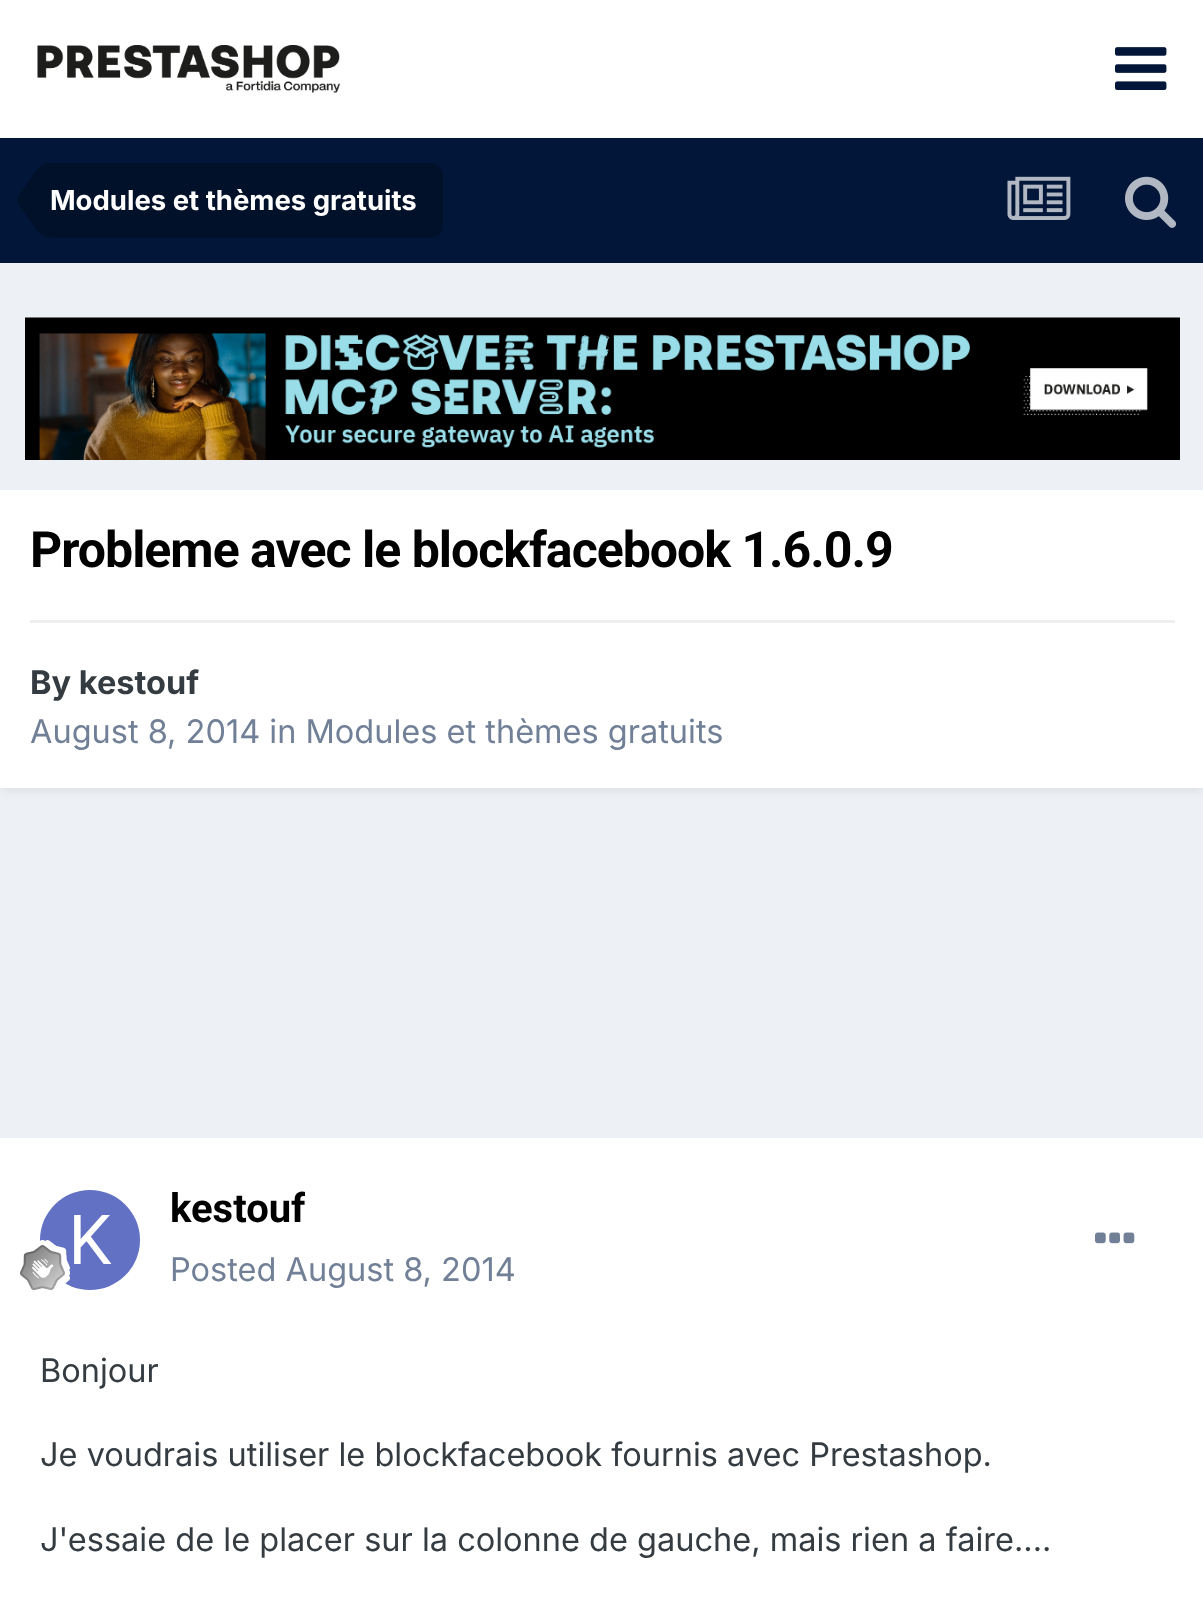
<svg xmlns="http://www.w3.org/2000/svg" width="1203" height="1616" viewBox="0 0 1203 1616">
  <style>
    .t1 { font: bold 27.5px Inter; fill: #fff; }
    .t2 { font: bold 50px Roboto; letter-spacing: -1px; fill: #000; }
    .t3 { font: bold 32.5px Inter; fill: #353c41; }
    .t4 { font: 32.5px Inter; fill: #718096; }
    .t5 { font: bold 40px Roboto; fill: #000; }
    .t6 { font: 32.5px Inter; fill: #353c41; }
  </style>
  <defs>
    <clipPath id="clip1"><rect x="170" y="1188" width="135" height="45"/></clipPath>
  </defs>
  <rect width="100%" height="100%" fill="#edf0f4"/>
  <rect x="0" y="0" width="1203" height="138" fill="#fff"/>
  <image x="37" y="45" width="303" height="48" href="images/1.png"/>
  <image x="1115" y="47" width="52" height="43" href="images/2.png"/>
  <rect x="0" y="138" width="1203" height="125" fill="#011638"/>
  <path d="M50 163H430C437 163 443 169 443 176V225C443 232 437 238 430 238H50Z" fill="#01112a"/>
  <path d="M50 200V237C44.5 237 39 234 35 228L19 205C18 203.5 17.5 202 17.5 200Z" fill="#01112a"/>
  <path d="M50 200H17.5C17.5 198 18 196.5 19 195L35 172C39 166 44.5 163 50 163Z" fill="#01112a"/>
  <text x="50" y="210" class="t1">Modules et thèmes gratuits</text>
  <image x="1007" y="176" width="64" height="44" href="images/3.png"/>
  <image x="1125" y="176" width="52" height="52" href="images/4.png"/>
  <image x="25" y="317" width="1155" height="143" href="images/5.png"/>
  <rect x="3" y="498" width="1200" height="292" fill="#2d37481a" filter="blur(5px)"/>
  <rect x="0" y="490" width="1203" height="298" fill="#fff"/>
  <text x="30" y="567" class="t2">Probleme avec le blockfacebook 1.6.0.9</text>
  <rect x="30" y="620" width="1145" height="3" fill="#efeff0"/>
  <text x="30" y="694" class="t3">By kestouf</text>
  <text x="30" y="743" class="t4">August 8, 2014 in Modules et thèmes gratuits</text>
  <rect x="0" y="1138" width="1203" height="478" fill="#fff"/>
  <image x="40" y="1190" width="100" height="100" href="images/6.png"/>
  <image x="20" y="1240" width="50" height="50" href="images/7.png"/>
  <g clip-path="url(#clip1)">
    <text x="170" y="1222" class="t5">kestouf</text>
  </g>
  <text x="170" y="1281" class="t4">Posted August 8, 2014</text>
  <image x="1095" y="1232" width="40" height="12" href="images/8.png"/>
  <text x="40" y="1382" class="t6">Bonjour</text>
  <text x="40" y="1466" class="t6">Je voudrais utiliser le blockfacebook fournis avec Prestashop.</text>
  <text x="40" y="1551" class="t6">J'essaie de le placer sur la colonne de gauche, mais rien a faire....</text>
</svg>
